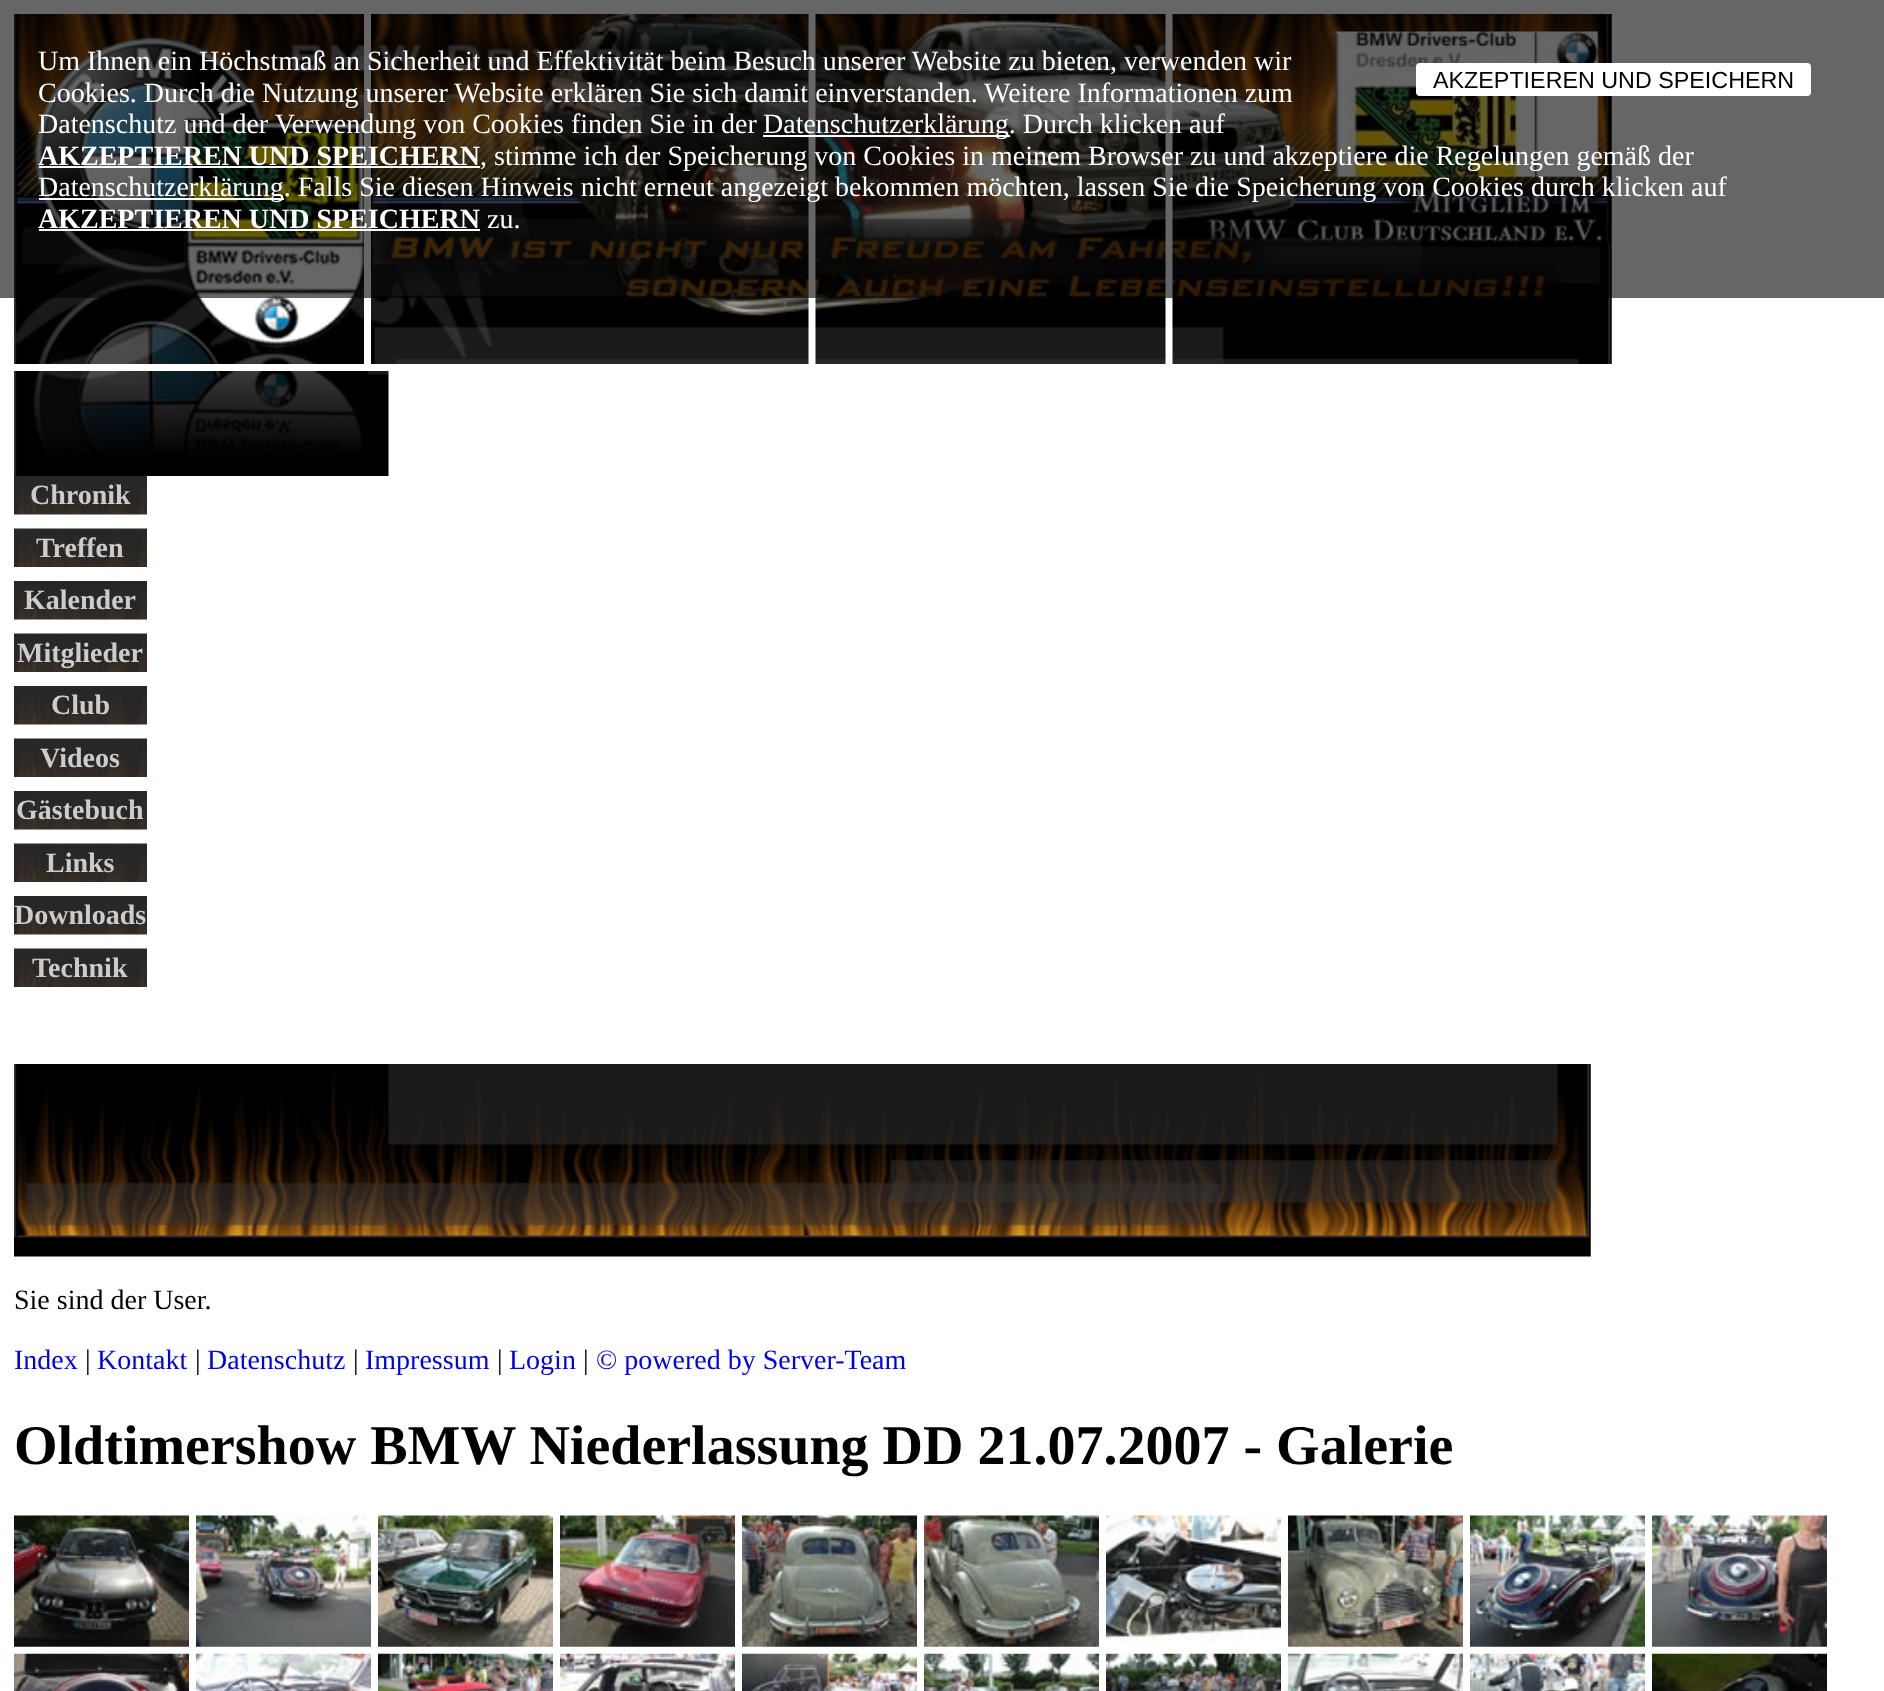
<svg xmlns="http://www.w3.org/2000/svg" width="1884" height="1691" viewBox="0 0 1884 1691">
  <style>
    .t1 { font: 28px Liberation Serif; fill: #fff; }
    .t2 { font: 23.3px Liberation Sans; fill: #000; }
    .t3 { font: bold 28px Liberation Serif; fill: #fff; }
    .t4 { font: bold 28px Liberation Serif; fill: #ccc; }
    .t5 { font: 28px Liberation Serif; fill: #000; }
    .t6 { font: 28px Liberation Serif; fill: #00e; }
    .t7 { font: bold 56px Liberation Serif; fill: #000; }
  </style>
  <rect width="100%" height="100%" fill="#fff"/>
  <image x="14" y="14" width="350" height="350" href="images/1.png"/>
  <image x="371" y="14" width="438" height="350" href="images/2.png"/>
  <image x="815" y="14" width="351" height="350" href="images/3.png"/>
  <image x="1172" y="14" width="440" height="350" href="images/4.png"/>
  <rect x="0" y="0" width="1884" height="298" fill="#00000099"/>
  <text x="38" y="70" class="t1">Um Ihnen ein Höchstmaß an Sicherheit und Effektivität beim Besuch unserer Website zu bieten, verwenden wir</text>
  <rect x="1416" y="63" width="395" height="33" rx="4" fill="#fff"/>
  <text x="1433" y="88" class="t2">AKZEPTIEREN UND SPEICHERN</text>
  <text x="38" y="102" class="t1">Cookies. Durch die Nutzung unserer Website erklären Sie sich damit einverstanden. Weitere Informationen zum</text>
  <text x="38" y="133" class="t1">Datenschutz und der Verwendung von Cookies finden Sie in der</text>
  <rect x="763" y="135" width="247" height="2" fill="#fff"/>
  <text x="763" y="133" class="t1">Datenschutzerklärung. Durch klicken auf</text>
  <text x="38" y="165" class="t3">AKZEPTIEREN UND SPEICHERN</text>
  <rect x="39" y="166" width="441" height="2" fill="#fff"/>
  <text x="480" y="165" class="t1">, stimme ich der Speicherung von Cookies in meinem Browser zu und akzeptiere die Regelungen gemäß der</text>
  <rect x="39" y="198" width="245" height="2" fill="#fff"/>
  <text x="38" y="196" class="t1">Datenschutzerklärung. Falls Sie diesen Hinweis nicht erneut angezeigt bekommen möchten, lassen Sie die Speicherung von Cookies durch klicken auf</text>
  <text x="38" y="228" class="t3">AKZEPTIEREN UND SPEICHERN</text>
  <rect x="39" y="229" width="441" height="2" fill="#fff"/>
  <text x="487" y="228" class="t1">zu.</text>
  <image x="14" y="371" width="375" height="105" href="images/5.png"/>
  <image x="14" y="476" width="133" height="39" href="images/6.png"/>
  <text x="30" y="504" class="t4">Chronik</text>
  <image x="14" y="528" width="133" height="39" href="images/7.png"/>
  <text x="36" y="557" class="t4">Treffen</text>
  <image x="14" y="581" width="133" height="39" href="images/6.png"/>
  <text x="24" y="609" class="t4">Kalender</text>
  <image x="14" y="633" width="133" height="39" href="images/7.png"/>
  <text x="17" y="662" class="t4">Mitglieder</text>
  <image x="14" y="686" width="133" height="39" href="images/6.png"/>
  <text x="51" y="714" class="t4">Club</text>
  <image x="14" y="738" width="133" height="39" href="images/7.png"/>
  <text x="40" y="767" class="t4">Videos</text>
  <image x="14" y="791" width="133" height="39" href="images/6.png"/>
  <text x="16" y="819" class="t4">Gästebuch</text>
  <image x="14" y="843" width="133" height="39" href="images/7.png"/>
  <text x="46" y="872" class="t4">Links</text>
  <image x="14" y="896" width="133" height="39" href="images/6.png"/>
  <text x="14" y="924" class="t4">Downloads</text>
  <image x="14" y="948" width="133" height="39" href="images/7.png"/>
  <text x="32" y="977" class="t4">Technik</text>
  <image x="14" y="1064" width="1577" height="193" href="images/8.png"/>
  <text x="14" y="1309" class="t5">Sie sind der User.</text>
  <text x="14" y="1369" class="t6">Index</text>
  <text x="85" y="1369" class="t5">|</text>
  <text x="97" y="1369" class="t6">Kontakt</text>
  <text x="195" y="1369" class="t5">|</text>
  <text x="207" y="1369" class="t6">Datenschutz</text>
  <text x="353" y="1369" class="t5">|</text>
  <text x="365" y="1369" class="t6">Impressum</text>
  <text x="497" y="1369" class="t5">|</text>
  <text x="509" y="1369" class="t6">Login</text>
  <text x="583" y="1369" class="t5">|</text>
  <text x="596" y="1369" class="t6">© powered by Server-Team</text>
  <text x="14" y="1464" class="t7">Oldtimershow BMW Niederlassung DD 21.07.2007 - Galerie</text>
  <image x="14" y="1515" width="175" height="132" href="images/9.png"/>
  <image x="196" y="1515" width="175" height="132" href="images/10.png"/>
  <image x="378" y="1515" width="175" height="132" href="images/11.png"/>
  <image x="560" y="1515" width="175" height="132" href="images/12.png"/>
  <image x="742" y="1515" width="175" height="132" href="images/13.png"/>
  <image x="924" y="1515" width="175" height="132" href="images/14.png"/>
  <image x="1106" y="1515" width="175" height="127" href="images/15.png"/>
  <image x="1288" y="1515" width="175" height="132" href="images/16.png"/>
  <image x="1470" y="1515" width="175" height="132" href="images/17.png"/>
  <image x="1652" y="1515" width="175" height="132" href="images/18.png"/>
  <image x="14" y="1653" width="175" height="38" href="images/19.png"/>
  <image x="196" y="1653" width="175" height="38" href="images/20.png"/>
  <image x="378" y="1653" width="175" height="38" href="images/21.png"/>
  <image x="560" y="1653" width="175" height="38" href="images/22.png"/>
  <image x="742" y="1653" width="175" height="38" href="images/23.png"/>
  <image x="924" y="1653" width="175" height="38" href="images/24.png"/>
  <image x="1106" y="1653" width="175" height="38" href="images/25.png"/>
  <image x="1288" y="1653" width="175" height="38" href="images/26.png"/>
  <image x="1470" y="1653" width="175" height="38" href="images/27.png"/>
  <image x="1652" y="1653" width="175" height="38" href="images/28.png"/>
</svg>
